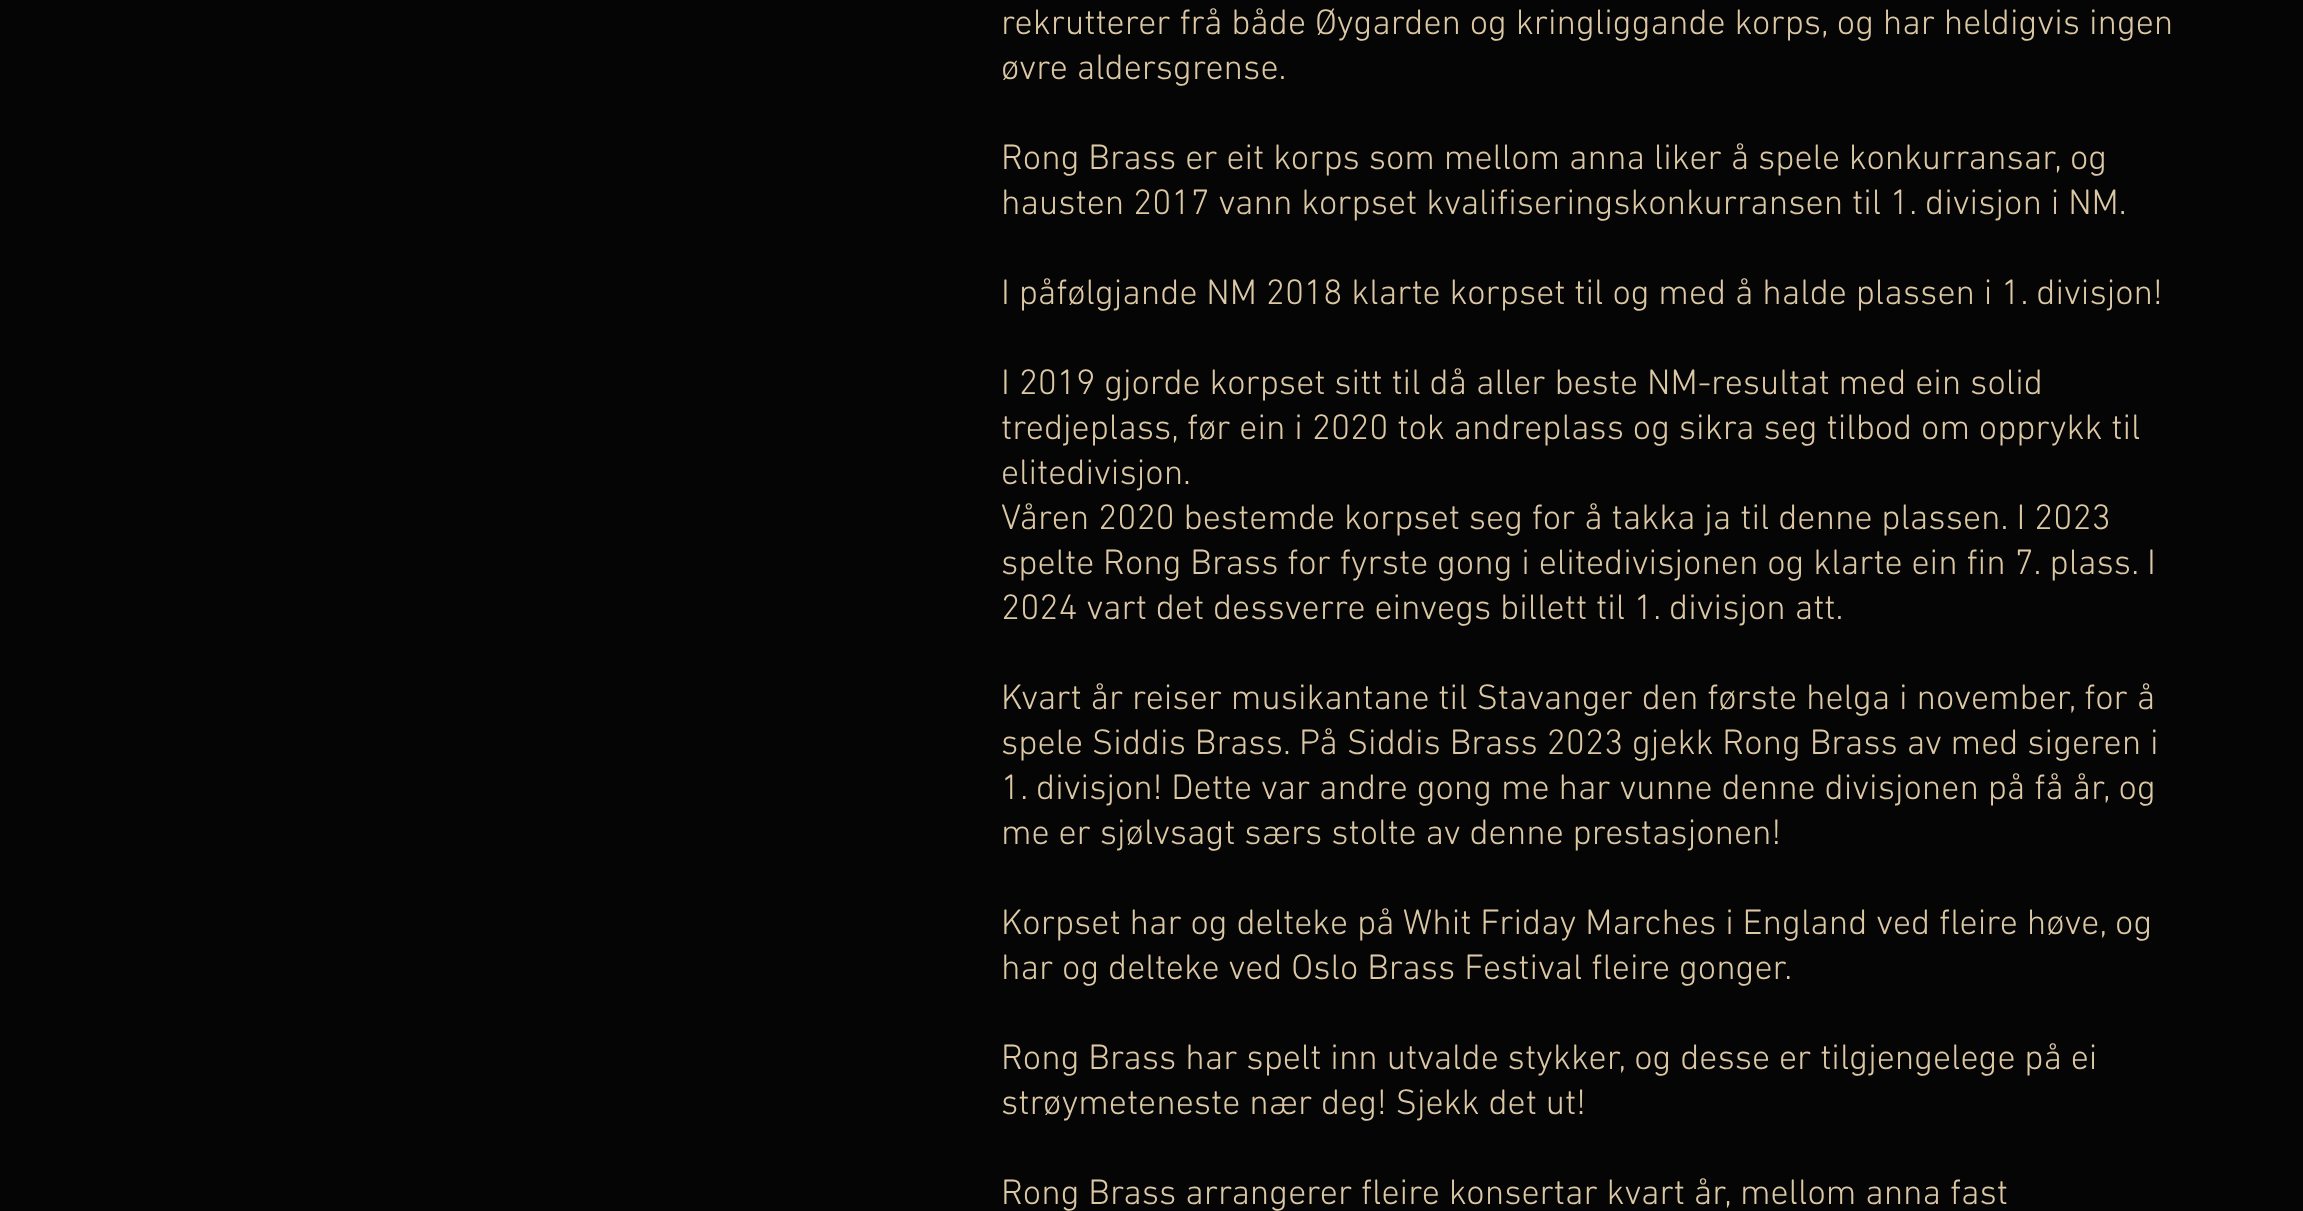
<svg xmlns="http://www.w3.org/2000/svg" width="2303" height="1211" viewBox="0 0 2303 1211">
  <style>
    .t1 { font: 300 36px 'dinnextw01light'; fill: #dcc8a4; }
  </style>
  <rect width="100%" height="100%" fill="#050505"/>
  <text x="1001" y="34" class="t1">rekrutterer frå både Øygarden og kringliggande korps, og har heldigvis ingen</text>
  <text x="1001" y="79" class="t1">øvre aldersgrense.</text>
  <text x="1001" y="169" class="t1">Rong Brass er eit korps som mellom anna liker å spele konkurransar, og</text>
  <text x="1001" y="214" class="t1">hausten 2017 vann korpset kvalifiseringskonkurransen til 1. divisjon i NM.</text>
  <text x="1001" y="304" class="t1">I påfølgjande NM 2018 klarte korpset til og med å halde plassen i 1. divisjon!</text>
  <text x="1001" y="394" class="t1">I 2019 gjorde korpset sitt til då aller beste NM-resultat med ein solid</text>
  <text x="1001" y="439" class="t1">tredjeplass, før ein i 2020 tok andreplass og sikra seg tilbod om opprykk til</text>
  <text x="1001" y="484" class="t1">elitedivisjon.</text>
  <text x="1001" y="529" class="t1">Våren 2020 bestemde korpset seg for å takka ja til denne plassen. I 2023</text>
  <text x="1001" y="574" class="t1">spelte Rong Brass for fyrste gong i elitedivisjonen og klarte ein fin 7. plass. I</text>
  <text x="1001" y="619" class="t1">2024 vart det dessverre einvegs billett til 1. divisjon att.</text>
  <text x="1001" y="709" class="t1">Kvart år reiser musikantane til Stavanger den første helga i november, for å</text>
  <text x="1001" y="754" class="t1">spele Siddis Brass. På Siddis Brass 2023 gjekk Rong Brass av med sigeren i</text>
  <text x="1001" y="799" class="t1">1. divisjon! Dette var andre gong me har vunne denne divisjonen på få år, og</text>
  <text x="1001" y="844" class="t1">me er sjølvsagt særs stolte av denne prestasjonen!</text>
  <text x="1001" y="934" class="t1">Korpset har og delteke på Whit Friday Marches i England ved fleire høve, og</text>
  <text x="1001" y="979" class="t1">har og delteke ved Oslo Brass Festival fleire gonger.</text>
  <text x="1001" y="1069" class="t1">Rong Brass har spelt inn utvalde stykker, og desse er tilgjengelege på ei</text>
  <text x="1001" y="1114" class="t1">strøymeteneste nær deg! Sjekk det ut!  </text>
  <text x="1001" y="1204" class="t1">Rong Brass arrangerer fleire konsertar kvart år, mellom anna fast</text>
</svg>
